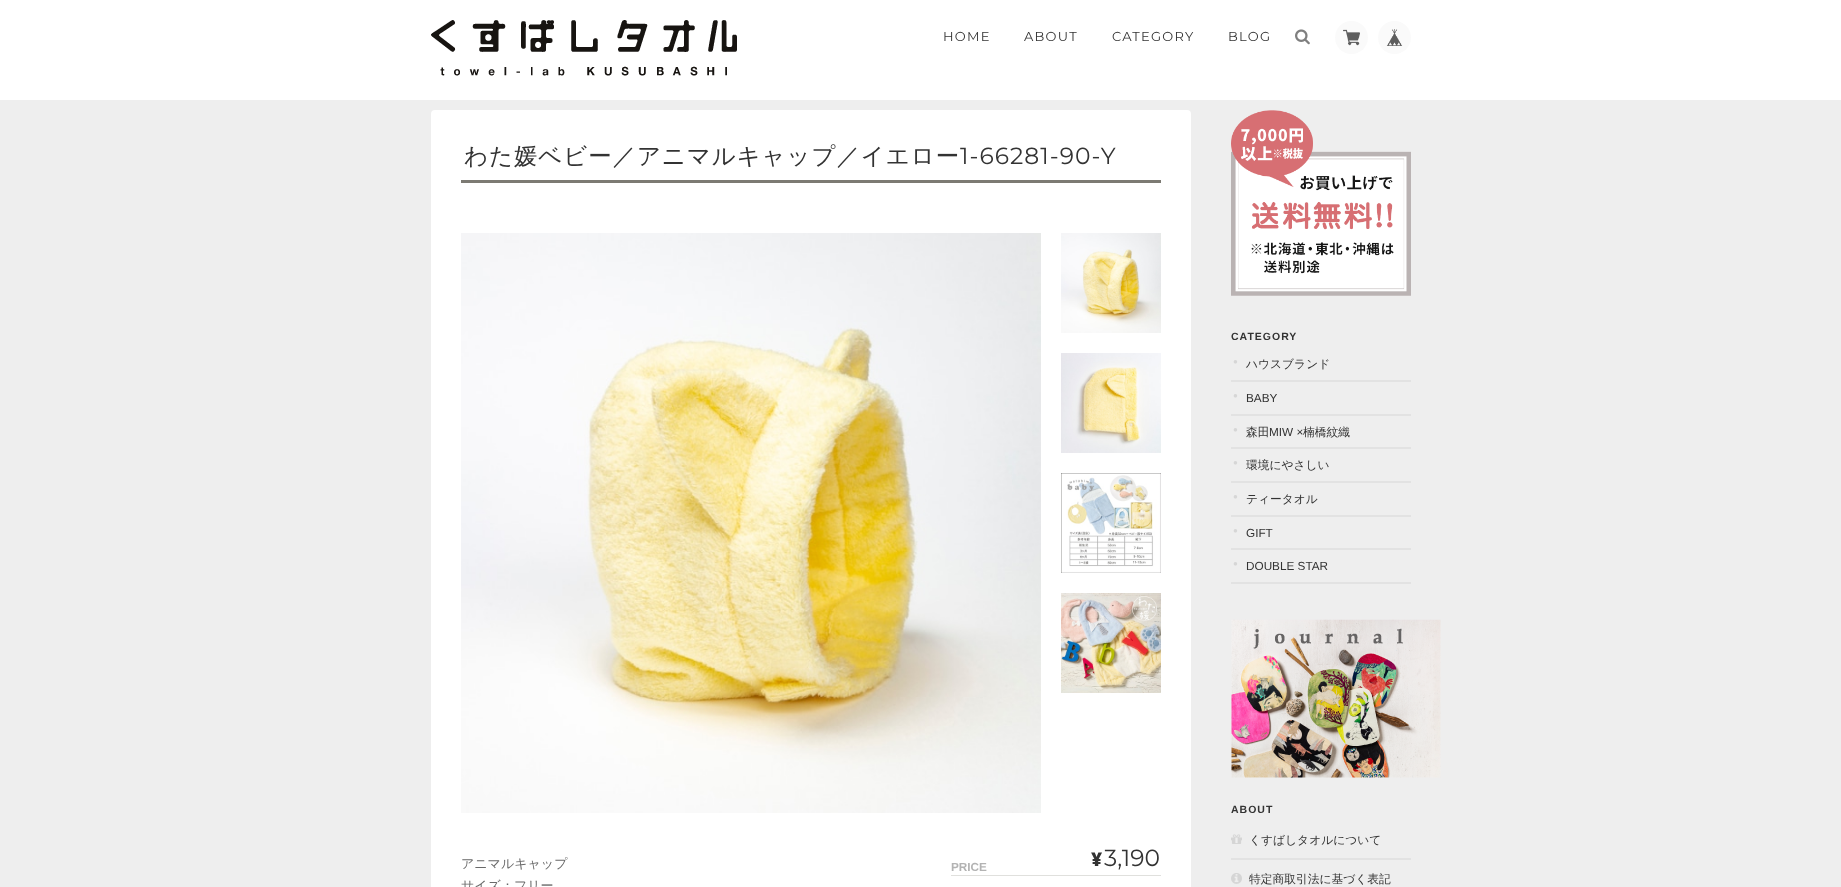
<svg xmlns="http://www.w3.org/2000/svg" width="1841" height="887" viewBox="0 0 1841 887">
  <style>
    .t1 { font: 13px Montserrat; letter-spacing: 1.25px; fill: #333; }
    .t2 { font: 500 23.4px WenQuanYi Zen Hei; letter-spacing: 1px; fill: #333; }
    .t3 { font: 23.4px Montserrat; letter-spacing: 1px; fill: #333; }
    .t4 { font: 500 13px WenQuanYi Zen Hei; fill: #696969; }
    .t5 { font: bold 11.75px Liberation Sans; fill: #b3b3b3; }
    .t6 { font: 900 19px Noto Sans; fill: #333; }
    .t7 { font: 23.4px Montserrat; fill: #333; }
    .t8 { font: bold 10.5px Liberation Sans; letter-spacing: 1px; fill: #333; }
    .t9 { font: 8px Liberation Sans; fill: #d6d6d6; }
    .t10 { font: 500 11.75px WenQuanYi Zen Hei; fill: #333; }
    .t11 { font: 11.75px Liberation Sans; fill: #333; }
  </style>
  <rect width="100%" height="100%" fill="#eee"/>
  <rect x="0" y="0" width="1841" height="100" fill="#fff"/>
  <image x="431" y="20" width="306" height="56" href="images/1.png"/>
  <text x="943" y="41" class="t1">HOME</text>
  <text x="1024" y="41" class="t1">ABOUT</text>
  <text x="1112" y="41" class="t1">CATEGORY</text>
  <text x="1228" y="41" class="t1">BLOG</text>
  <image x="1295" y="29" width="15" height="16" href="images/2.png"/>
  <circle cx="1351.5" cy="37.5" r="16.5" fill="#fafafaeb"/>
  <image x="1343" y="29" width="17" height="17" href="images/3.png"/>
  <circle cx="1394.5" cy="37.5" r="16.5" fill="#fafafaeb"/>
  <image x="1386" y="29" width="17" height="17" href="images/4.png"/>
  <rect x="431" y="110" width="760" height="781" rx="4" fill="#fff"/>
  <rect x="461" y="180" width="700" height="3" fill="#7c7a73"/>
  <text x="464" y="164" class="t2">わた媛ベビー／アニマルキャップ／イエロー</text>
  <text x="960" y="164" class="t3">1-66281-90-Y</text>
  <image x="461" y="233" width="580" height="580" href="images/5.png"/>
  <image x="1061" y="233" width="100" height="100" href="images/6.png"/>
  <image x="1061" y="353" width="100" height="100" href="images/7.png"/>
  <image x="1061" y="473" width="100" height="100" href="images/8.png"/>
  <image x="1061" y="593" width="100" height="100" href="images/9.png"/>
  <text x="461" y="868" class="t4">アニマルキャップ</text>
  <text x="461" y="890" class="t4">サイズ：フリー</text>
  <text x="951" y="871" class="t5">PRICE</text>
  <rect x="951" y="875" width="210" height="1" fill="#e0e0dd"/>
  <text x="1091" y="866" class="t6">¥</text>
  <text x="1104" y="866" class="t7">3,190</text>
  <image x="1231" y="110" width="180" height="186" href="images/10.png"/>
  <text x="1231" y="340" class="t8">CATEGORY</text>
  <rect x="1231" y="380" width="180" height="2" fill="#e2e2e2"/>
  <text x="1233" y="364" class="t9">●</text>
  <text x="1246" y="368" class="t10">ハウスブランド</text>
  <rect x="1231" y="414" width="180" height="2" fill="#e2e2e2"/>
  <text x="1233" y="398" class="t9">●</text>
  <text x="1246" y="402" class="t11">BABY</text>
  <rect x="1231" y="447" width="180" height="2" fill="#e2e2e2"/>
  <text x="1233" y="432" class="t9">●</text>
  <text x="1246" y="436" class="t10">森田</text>
  <text x="1269" y="436" class="t11">MIW ×</text>
  <text x="1303" y="436" class="t10">楠橋紋織</text>
  <rect x="1231" y="481" width="180" height="2" fill="#e2e2e2"/>
  <text x="1233" y="465" class="t9">●</text>
  <text x="1246" y="469" class="t10">環境にやさしい</text>
  <rect x="1231" y="515" width="180" height="2" fill="#e2e2e2"/>
  <text x="1233" y="499" class="t9">●</text>
  <text x="1246" y="503" class="t10">ティータオル</text>
  <rect x="1231" y="548" width="180" height="2" fill="#e2e2e2"/>
  <text x="1233" y="533" class="t9">●</text>
  <text x="1246" y="537" class="t11">GIFT</text>
  <rect x="1231" y="582" width="180" height="2" fill="#e2e2e2"/>
  <text x="1233" y="566" class="t9">●</text>
  <text x="1246" y="570" class="t11">DOUBLE STAR</text>
  <image x="1231" y="619" width="210" height="159" href="images/11.png"/>
  <text x="1231" y="813" class="t8">ABOUT</text>
  <rect x="1231" y="858" width="180" height="2" fill="#e2e2e2"/>
  <image x="1231" y="834" width="11" height="10" href="images/12.png"/>
  <text x="1249" y="844" class="t10">くすばしタオルについて</text>
  <image x="1231" y="873" width="11" height="11" href="images/13.png"/>
  <text x="1249" y="883" class="t10">特定商取引法に基づく表記</text>
</svg>
